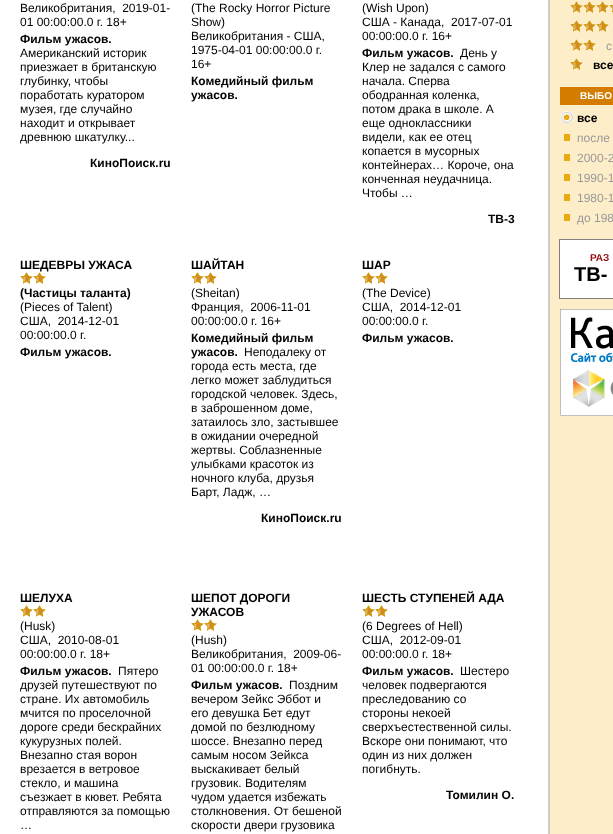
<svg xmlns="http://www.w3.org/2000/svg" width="613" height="834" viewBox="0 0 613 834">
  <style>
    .t1 { font: 12px Liberation Sans; fill: #000; }
    .t2 { font: bold 12px Liberation Sans; fill: #000; }
    .t3 { font: 12px Liberation Sans; fill: #999; }
    .t4 { font: bold 10px Liberation Sans; fill: #fff; }
    .t5 { font: bold 10px Liberation Sans; fill: #970b0e; }
    .t6 { font: bold 20px Liberation Sans; fill: #000; }
  </style>
  <rect width="100%" height="100%" fill="#fff"/>
  <rect x="548" y="0" width="2" height="834" fill="#ccc"/>
  <text x="20" y="12" class="t1" xml:space="preserve">Великобритания,  2019-01-</text>
  <text x="20" y="26" class="t1">01 00:00:00.0 г. 18+</text>
  <text x="20" y="43" class="t2">Фильм ужасов.</text>
  <text x="20" y="57" class="t1">Американский историк</text>
  <text x="20" y="71" class="t1">приезжает в британскую</text>
  <text x="20" y="85" class="t1">глубинку, чтобы</text>
  <text x="20" y="99" class="t1">поработать куратором</text>
  <text x="20" y="113" class="t1">музея, где случайно</text>
  <text x="20" y="127" class="t1">находит и открывает</text>
  <text x="20" y="141" class="t1">древнюю шкатулку...</text>
  <text x="90" y="167" class="t2">КиноПоиск.ru</text>
  <text x="191" y="12" class="t1">(The Rocky Horror Picture</text>
  <text x="191" y="26" class="t1">Show)</text>
  <text x="191" y="40" class="t1">Великобритания - США,</text>
  <text x="191" y="54" class="t1">1975-04-01 00:00:00.0 г.</text>
  <text x="191" y="68" class="t1">16+</text>
  <text x="191" y="85" class="t2">Комедийный фильм</text>
  <text x="191" y="99" class="t2">ужасов.</text>
  <text x="362" y="12" class="t1">(Wish Upon)</text>
  <text x="362" y="26" class="t1" xml:space="preserve">США - Канада,  2017-07-01</text>
  <text x="362" y="40" class="t1">00:00:00.0 г. 16+</text>
  <text x="362" y="57" class="t2">Фильм ужасов.</text>
  <text x="460" y="57" class="t1">День у</text>
  <text x="362" y="71" class="t1">Клер не задался с самого</text>
  <text x="362" y="85" class="t1">начала. Сперва</text>
  <text x="362" y="99" class="t1">ободранная коленка,</text>
  <text x="362" y="113" class="t1">потом драка в школе. А</text>
  <text x="362" y="127" class="t1">еще одноклассники</text>
  <text x="362" y="141" class="t1">видели, как ее отец</text>
  <text x="362" y="155" class="t1">копается в мусорных</text>
  <text x="362" y="169" class="t1">контейнерах… Короче, она</text>
  <text x="362" y="183" class="t1">конченная неудачница.</text>
  <text x="362" y="197" class="t1">Чтобы …</text>
  <text x="488" y="223" class="t2">ТВ-3</text>
  <text x="20" y="269" class="t2">ШЕДЕВРЫ УЖАСА</text>
  <image x="20" y="272" width="26" height="12" href="images/1.png"/>
  <text x="20" y="297" class="t2">(Частицы таланта)</text>
  <text x="20" y="311" class="t1">(Pieces of Talent)</text>
  <text x="20" y="325" class="t1" xml:space="preserve">США,  2014-12-01</text>
  <text x="20" y="339" class="t1">00:00:00.0 г.</text>
  <text x="20" y="356" class="t2">Фильм ужасов.</text>
  <text x="191" y="269" class="t2">ШАЙТАН</text>
  <image x="191" y="272" width="26" height="12" href="images/1.png"/>
  <text x="191" y="297" class="t1">(Sheitan)</text>
  <text x="191" y="311" class="t1" xml:space="preserve">Франция,  2006-11-01</text>
  <text x="191" y="325" class="t1">00:00:00.0 г. 16+</text>
  <text x="191" y="342" class="t2">Комедийный фильм</text>
  <text x="191" y="356" class="t2">ужасов.</text>
  <text x="244" y="356" class="t1">Неподалеку от</text>
  <text x="191" y="370" class="t1">города есть места, где</text>
  <text x="191" y="384" class="t1">легко может заблудиться</text>
  <text x="191" y="398" class="t1">городской человек. Здесь,</text>
  <text x="191" y="412" class="t1">в заброшенном доме,</text>
  <text x="191" y="426" class="t1">затаилось зло, застывшее</text>
  <text x="191" y="440" class="t1">в ожидании очередной</text>
  <text x="191" y="454" class="t1">жертвы. Соблазненные</text>
  <text x="191" y="468" class="t1">улыбками красоток из</text>
  <text x="191" y="482" class="t1">ночного клуба, друзья</text>
  <text x="191" y="496" class="t1">Барт, Ладж, …</text>
  <text x="261" y="522" class="t2">КиноПоиск.ru</text>
  <text x="362" y="269" class="t2">ШАР</text>
  <image x="362" y="272" width="26" height="12" href="images/1.png"/>
  <text x="362" y="297" class="t1">(The Device)</text>
  <text x="362" y="311" class="t1" xml:space="preserve">США,  2014-12-01</text>
  <text x="362" y="325" class="t1">00:00:00.0 г.</text>
  <text x="362" y="342" class="t2">Фильм ужасов.</text>
  <text x="20" y="602" class="t2">ШЕЛУХА</text>
  <image x="20" y="605" width="26" height="12" href="images/1.png"/>
  <text x="20" y="630" class="t1">(Husk)</text>
  <text x="20" y="644" class="t1" xml:space="preserve">США,  2010-08-01</text>
  <text x="20" y="658" class="t1">00:00:00.0 г. 18+</text>
  <text x="20" y="675" class="t2">Фильм ужасов.</text>
  <text x="118" y="675" class="t1">Пятеро</text>
  <text x="20" y="689" class="t1">друзей путешествуют по</text>
  <text x="20" y="703" class="t1">стране. Их автомобиль</text>
  <text x="20" y="717" class="t1">мчится по проселочной</text>
  <text x="20" y="731" class="t1">дороге среди бескрайних</text>
  <text x="20" y="745" class="t1">кукурузных полей.</text>
  <text x="20" y="759" class="t1">Внезапно стая ворон</text>
  <text x="20" y="773" class="t1">врезается в ветровое</text>
  <text x="20" y="787" class="t1">стекло, и машина</text>
  <text x="20" y="801" class="t1">съезжает в кювет. Ребята</text>
  <text x="20" y="815" class="t1">отправляются за помощью</text>
  <text x="20" y="829" class="t1">…</text>
  <text x="191" y="602" class="t2">ШЕПОТ ДОРОГИ</text>
  <text x="191" y="616" class="t2">УЖАСОВ</text>
  <image x="191" y="619" width="26" height="12" href="images/1.png"/>
  <text x="191" y="644" class="t1">(Hush)</text>
  <text x="191" y="658" class="t1" xml:space="preserve">Великобритания,  2009-06-</text>
  <text x="191" y="672" class="t1">01 00:00:00.0 г. 18+</text>
  <text x="191" y="689" class="t2">Фильм ужасов.</text>
  <text x="289" y="689" class="t1">Поздним</text>
  <text x="191" y="703" class="t1">вечером Зейкс Эббот и</text>
  <text x="191" y="717" class="t1">его девушка Бет едут</text>
  <text x="191" y="731" class="t1">домой по безлюдному</text>
  <text x="191" y="745" class="t1">шоссе. Внезапно перед</text>
  <text x="191" y="759" class="t1">самым носом Зейкса</text>
  <text x="191" y="773" class="t1">выскакивает белый</text>
  <text x="191" y="787" class="t1">грузовик. Водителям</text>
  <text x="191" y="801" class="t1">чудом удается избежать</text>
  <text x="191" y="815" class="t1">столкновения. От бешеной</text>
  <text x="191" y="829" class="t1">скорости двери грузовика</text>
  <text x="362" y="602" class="t2">ШЕСТЬ СТУПЕНЕЙ АДА</text>
  <image x="362" y="605" width="26" height="12" href="images/1.png"/>
  <text x="362" y="630" class="t1">(6 Degrees of Hell)</text>
  <text x="362" y="644" class="t1" xml:space="preserve">США,  2012-09-01</text>
  <text x="362" y="658" class="t1">00:00:00.0 г. 18+</text>
  <text x="362" y="675" class="t2">Фильм ужасов.</text>
  <text x="460" y="675" class="t1">Шестеро</text>
  <text x="362" y="689" class="t1">человек подвергаются</text>
  <text x="362" y="703" class="t1">преследованию со</text>
  <text x="362" y="717" class="t1">стороны некоей</text>
  <text x="362" y="731" class="t1">сверхъестественной силы.</text>
  <text x="362" y="745" class="t1">Вскоре они понимают, что</text>
  <text x="362" y="759" class="t1">один из них должен</text>
  <text x="362" y="773" class="t1">погибнуть.</text>
  <text x="446" y="799" class="t2">Томилин О.</text>
  <rect x="550" y="0" width="63" height="834" fill="#feedc9"/>
  <image x="570" y="1" width="43" height="12" href="images/2.png"/>
  <image x="570" y="20" width="39" height="12" href="images/3.png"/>
  <image x="570" y="39" width="26" height="12" href="images/4.png"/>
  <text x="606" y="50" class="t3">с</text>
  <image x="570" y="58" width="13" height="12" href="images/5.png"/>
  <text x="593" y="69" class="t2">все</text>
  <rect x="560" y="87" width="53" height="18" fill="#d37c00"/>
  <text x="580" y="99" class="t4">ВЫБО</text>
  <image x="561" y="111" width="12" height="13" href="images/6.png"/>
  <text x="577" y="122" class="t2">все</text>
  <text x="577" y="142" class="t3">после</text>
  <rect x="564" y="134" width="6" height="7" fill="#eaaa11"/>
  <text x="577" y="162" class="t3">2000-2</text>
  <rect x="564" y="154" width="6" height="7" fill="#eaaa11"/>
  <text x="577" y="182" class="t3">1990-1</text>
  <rect x="564" y="174" width="6" height="7" fill="#eaaa11"/>
  <text x="577" y="202" class="t3">1980-1</text>
  <rect x="564" y="194" width="6" height="7" fill="#eaaa11"/>
  <text x="577" y="222" class="t3">до 198</text>
  <rect x="564" y="214" width="6" height="7" fill="#eaaa11"/>
  <rect x="559.5" y="239.5" width="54" height="59" fill="#fff" stroke="#808080"/>
  <text x="590" y="261" class="t5">РАЗ</text>
  <text x="574" y="281" class="t6">ТВ-</text>
  <image x="560" y="309" width="53" height="107" href="images/7.png"/>
</svg>
